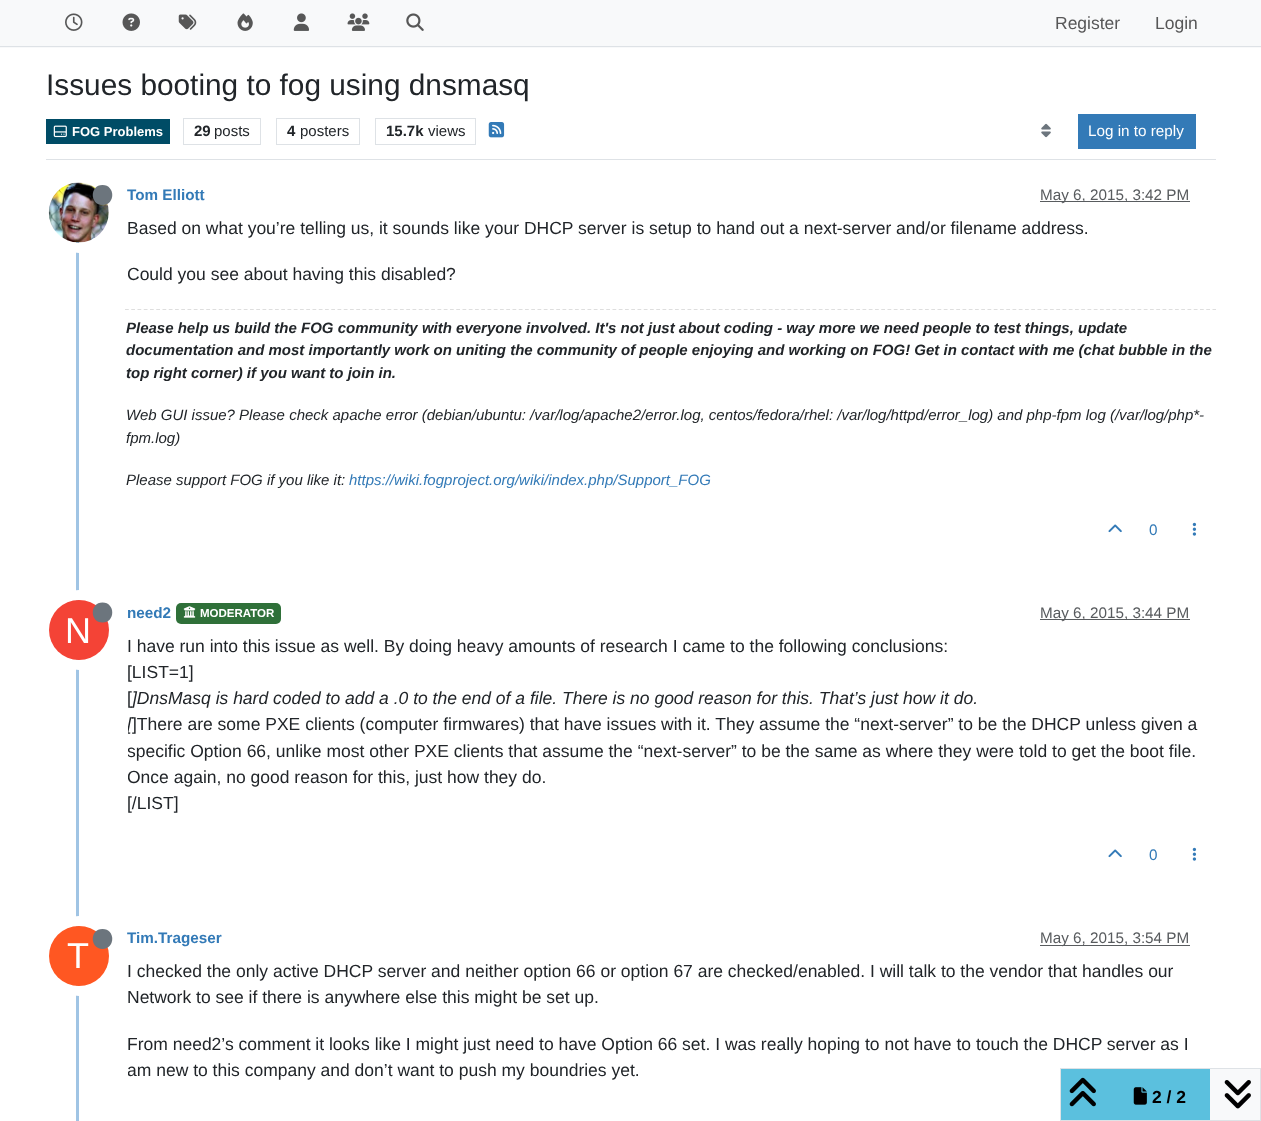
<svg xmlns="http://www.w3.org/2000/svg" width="1261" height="1121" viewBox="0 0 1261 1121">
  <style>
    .t1 { font: 17.5px Liberation Sans; fill: #575758; }
    .t2 { font: 29.8px Liberation Sans; fill: #212529; }
    .t3 { font: bold 13px Liberation Sans; fill: #fff; }
    .t4 { font: bold 15px Liberation Sans; fill: #212529; }
    .t5 { font: 15px Liberation Sans; fill: #212529; }
    .t6 { font: 15.25px Liberation Sans; fill: #fff; }
    .t7 { font: bold 15.25px Liberation Sans; fill: #337ab7; }
    .t8 { font: 15.25px Liberation Sans; fill: #585b5e; }
    .t9 { font: 17.5px Liberation Sans; fill: #212529; }
    .t10 { font: italic bold 15px Liberation Sans; fill: #212529; }
    .t11 { font: italic 15px Liberation Sans; fill: #212529; }
    .t12 { font: italic 15px Liberation Sans; fill: #337ab7; }
    .t13 { font: 15.25px Liberation Sans; fill: #337ab7; }
    .t14 { font: bold 11.5px Liberation Sans; fill: #fff; }
    .t15 { font: 36px Liberation Sans; fill: #fff; }
    .t16 { font: italic 17.5px Liberation Sans; fill: #212529; }
    .t17 { font: bold 17.5px Liberation Sans; fill: #000; }
  </style>
  <defs>
    <clipPath id="clip1"><rect x="128" y="215" width="1088" height="94"/></clipPath>
    <clipPath id="clip2"><rect x="128" y="633" width="1088" height="205"/></clipPath>
    <clipPath id="clip3"><rect x="128" y="959" width="1088" height="146"/></clipPath>
  </defs>
  <rect width="100%" height="100%" fill="#fff"/>
  <rect x="0" y="0" width="1261" height="48" fill="#f8f9fa"/>
  <rect x="0" y="46" width="1261" height="1" fill="#dee2e6"/>
  <image x="65" y="13" width="18" height="18" href="images/1.png"/>
  <image x="122" y="13" width="18" height="18" href="images/2.png"/>
  <image x="178" y="14" width="19" height="16" href="images/3.png"/>
  <image x="237" y="13" width="16" height="18" href="images/4.png"/>
  <image x="293" y="13" width="16" height="18" href="images/5.png"/>
  <image x="347" y="13" width="23" height="18" href="images/6.png"/>
  <image x="406" y="13" width="18" height="18" href="images/7.png"/>
  <text x="1055" y="29" class="t1">Register</text>
  <text x="1155" y="29" class="t1">Login</text>
  <rect x="46" y="159" width="1170" height="1" fill="#dee2e6"/>
  <text x="46" y="95" class="t2">Issues booting to fog using dnsmasq</text>
  <rect x="46" y="119" width="124" height="25" fill="#004c66"/>
  <image x="53" y="125" width="14" height="13" href="images/8.png"/>
  <text x="72" y="136" class="t3">FOG Problems</text>
  <rect x="183.5" y="118.5" width="77" height="26" fill="none" stroke="#dee2e6"/>
  <text x="194" y="136" class="t4">29</text>
  <text x="214" y="136" class="t5">posts</text>
  <rect x="276.5" y="118.5" width="83" height="26" fill="none" stroke="#dee2e6"/>
  <text x="287" y="136" class="t4">4</text>
  <text x="300" y="136" class="t5">posters</text>
  <rect x="375.5" y="118.5" width="100" height="26" fill="none" stroke="#dee2e6"/>
  <text x="386" y="136" class="t4">15.7k</text>
  <text x="428" y="136" class="t5">views</text>
  <image x="488" y="122" width="17" height="16" href="images/9.png"/>
  <image x="1041" y="123" width="10" height="15" href="images/10.png"/>
  <rect x="1078" y="114" width="118" height="35" fill="#337ab7"/>
  <text x="1088" y="136" class="t6">Log in to reply</text>
  <rect x="76" y="242" width="3" height="879" fill="#a0c4e4"/>
  <circle cx="79" cy="213" r="35" fill="none" stroke="#fff" stroke-width="10"/>
  <image x="48" y="182" width="61" height="61" href="images/11.png"/>
  <path d="M102.5 205C115.5 205 115.5 185 102.5 185C89.5 185 89.5 205 102.5 205Z" fill="#6c757d"/>
  <text x="127" y="200" class="t7">Tom Elliott</text>
  <rect x="1040" y="201" width="150" height="1" fill="#595c5f"/>
  <text x="1040" y="200" class="t8">May 6, 2015, 3:42 PM</text>
  <text x="127" y="234" class="t9">Based on what you’re telling us, it sounds like your DHCP server is setup to hand out a next-server and/or filename address.</text>
  <g clip-path="url(#clip1)">
    <text x="127" y="280" class="t9">Could you see about having this disabled?</text>
  </g>
  <path d="M125 309.5H1216" fill="none" stroke="#dedede" stroke-width="1.2" stroke-dasharray="3.75 2.5"/>
  <text x="126" y="333" class="t10">Please help us build the FOG community with everyone involved. It's not just about coding - way more we need people to test things, update</text>
  <text x="126" y="355" class="t10">documentation and most importantly work on uniting the community of people enjoying and working on FOG! Get in contact with me (chat bubble in the</text>
  <text x="126" y="378" class="t10">top right corner) if you want to join in.</text>
  <text x="126" y="420" class="t11">Web GUI issue? Please check apache error (debian/ubuntu: /var/log/apache2/error.log, centos/fedora/rhel: /var/log/httpd/error_log) and php-fpm log (/var/log/php*-</text>
  <text x="126" y="443" class="t11">fpm.log)</text>
  <text x="126" y="485" class="t11">Please support FOG if you like it:</text>
  <text x="349" y="485" class="t12">https://wiki.fogproject.org/wiki/index.php/Support_FOG</text>
  <image x="1108" y="524" width="14" height="9" href="images/12.png"/>
  <text x="1149" y="535" class="t13">0</text>
  <image x="1192" y="522" width="5" height="14" href="images/13.png"/>
  <text x="127" y="618" class="t7">need2</text>
  <rect x="176" y="603" width="105" height="21" rx="5" fill="#2f7039"/>
  <image x="183" y="606" width="13" height="12" href="images/14.png"/>
  <text x="200" y="617" class="t14">MODERATOR</text>
  <rect x="1040" y="619" width="150" height="1" fill="#595c5f"/>
  <text x="1040" y="618" class="t8">May 6, 2015, 3:44 PM</text>
  <circle cx="79" cy="630" r="35" fill="none" stroke="#fff" stroke-width="10"/>
  <circle cx="79" cy="630" r="30" fill="#f44336"/>
  <path d="M102.5 622.5C115.5 622.5 115.5 602.5 102.5 602.5C89.5 602.5 89.5 622.5 102.5 622.5Z" fill="#6c757d"/>
  <text x="65" y="643" class="t15">N</text>
  <text x="127" y="652" class="t9">I have run into this issue as well. By doing heavy amounts of research I came to the following conclusions:</text>
  <text x="127" y="678" class="t9">[LIST=1]</text>
  <text x="127" y="704" class="t9">[</text>
  <text x="132" y="704" class="t16">]DnsMasq is hard coded to add a .0 to the end of a file. There is no good reason for this. That’s just how it do.</text>
  <g clip-path="url(#clip2)">
    <text x="127" y="730" class="t16">[</text>
  </g>
  <text x="132" y="730" class="t9">]There are some PXE clients (computer firmwares) that have issues with it. They assume the “next-server” to be the DHCP unless given a</text>
  <g clip-path="url(#clip2)">
    <text x="127" y="757" class="t9">specific Option 66, unlike most other PXE clients that assume the “next-server” to be the same as where they were told to get the boot file.</text>
    <text x="127" y="783" class="t9">Once again, no good reason for this, just how they do.</text>
  </g>
  <text x="127" y="809" class="t9">[/LIST]</text>
  <image x="1108" y="849" width="14" height="9" href="images/12.png"/>
  <text x="1149" y="860" class="t13">0</text>
  <image x="1192" y="847" width="5" height="14" href="images/13.png"/>
  <text x="127" y="943" class="t7">Tim.Trageser</text>
  <rect x="1040" y="945" width="150" height="1" fill="#595c5f"/>
  <text x="1040" y="943" class="t8">May 6, 2015, 3:54 PM</text>
  <circle cx="79" cy="956" r="35" fill="none" stroke="#fff" stroke-width="10"/>
  <circle cx="79" cy="956" r="30" fill="#ff5722"/>
  <path d="M102.5 949C115.5 948.5 115.5 929 102.5 929C89.5 929 89.5 948.5 102.5 949Z" fill="#6c757d"/>
  <text x="67" y="968" class="t15">T</text>
  <text x="127" y="977" class="t9">I checked the only active DHCP server and neither option 66 or option 67 are checked/enabled. I will talk to the vendor that handles our</text>
  <text x="127" y="1003" class="t9">Network to see if there is anywhere else this might be set up.</text>
  <text x="127" y="1050" class="t9">From need2’s comment it looks like I might just need to have Option 66 set. I was really hoping to not have to touch the DHCP server as I</text>
  <g clip-path="url(#clip3)">
    <text x="127" y="1076" class="t9">am new to this company and don’t want to push my boundries yet.</text>
  </g>
  <rect x="1210" y="1069" width="50" height="51" fill="#f8f9fa"/>
  <rect x="1060.5" y="1068.5" width="200" height="52" fill="none" stroke="#dee2e6"/>
  <rect x="1061" y="1069" width="149" height="51" fill="#5bc0de"/>
  <image x="1069" y="1077" width="27" height="30" href="images/15.png"/>
  <image x="1133" y="1087" width="14" height="18" href="images/16.png"/>
  <text x="1152" y="1103" class="t17">2 / 2</text>
  <image x="1224" y="1080" width="27" height="29" href="images/17.png"/>
</svg>
